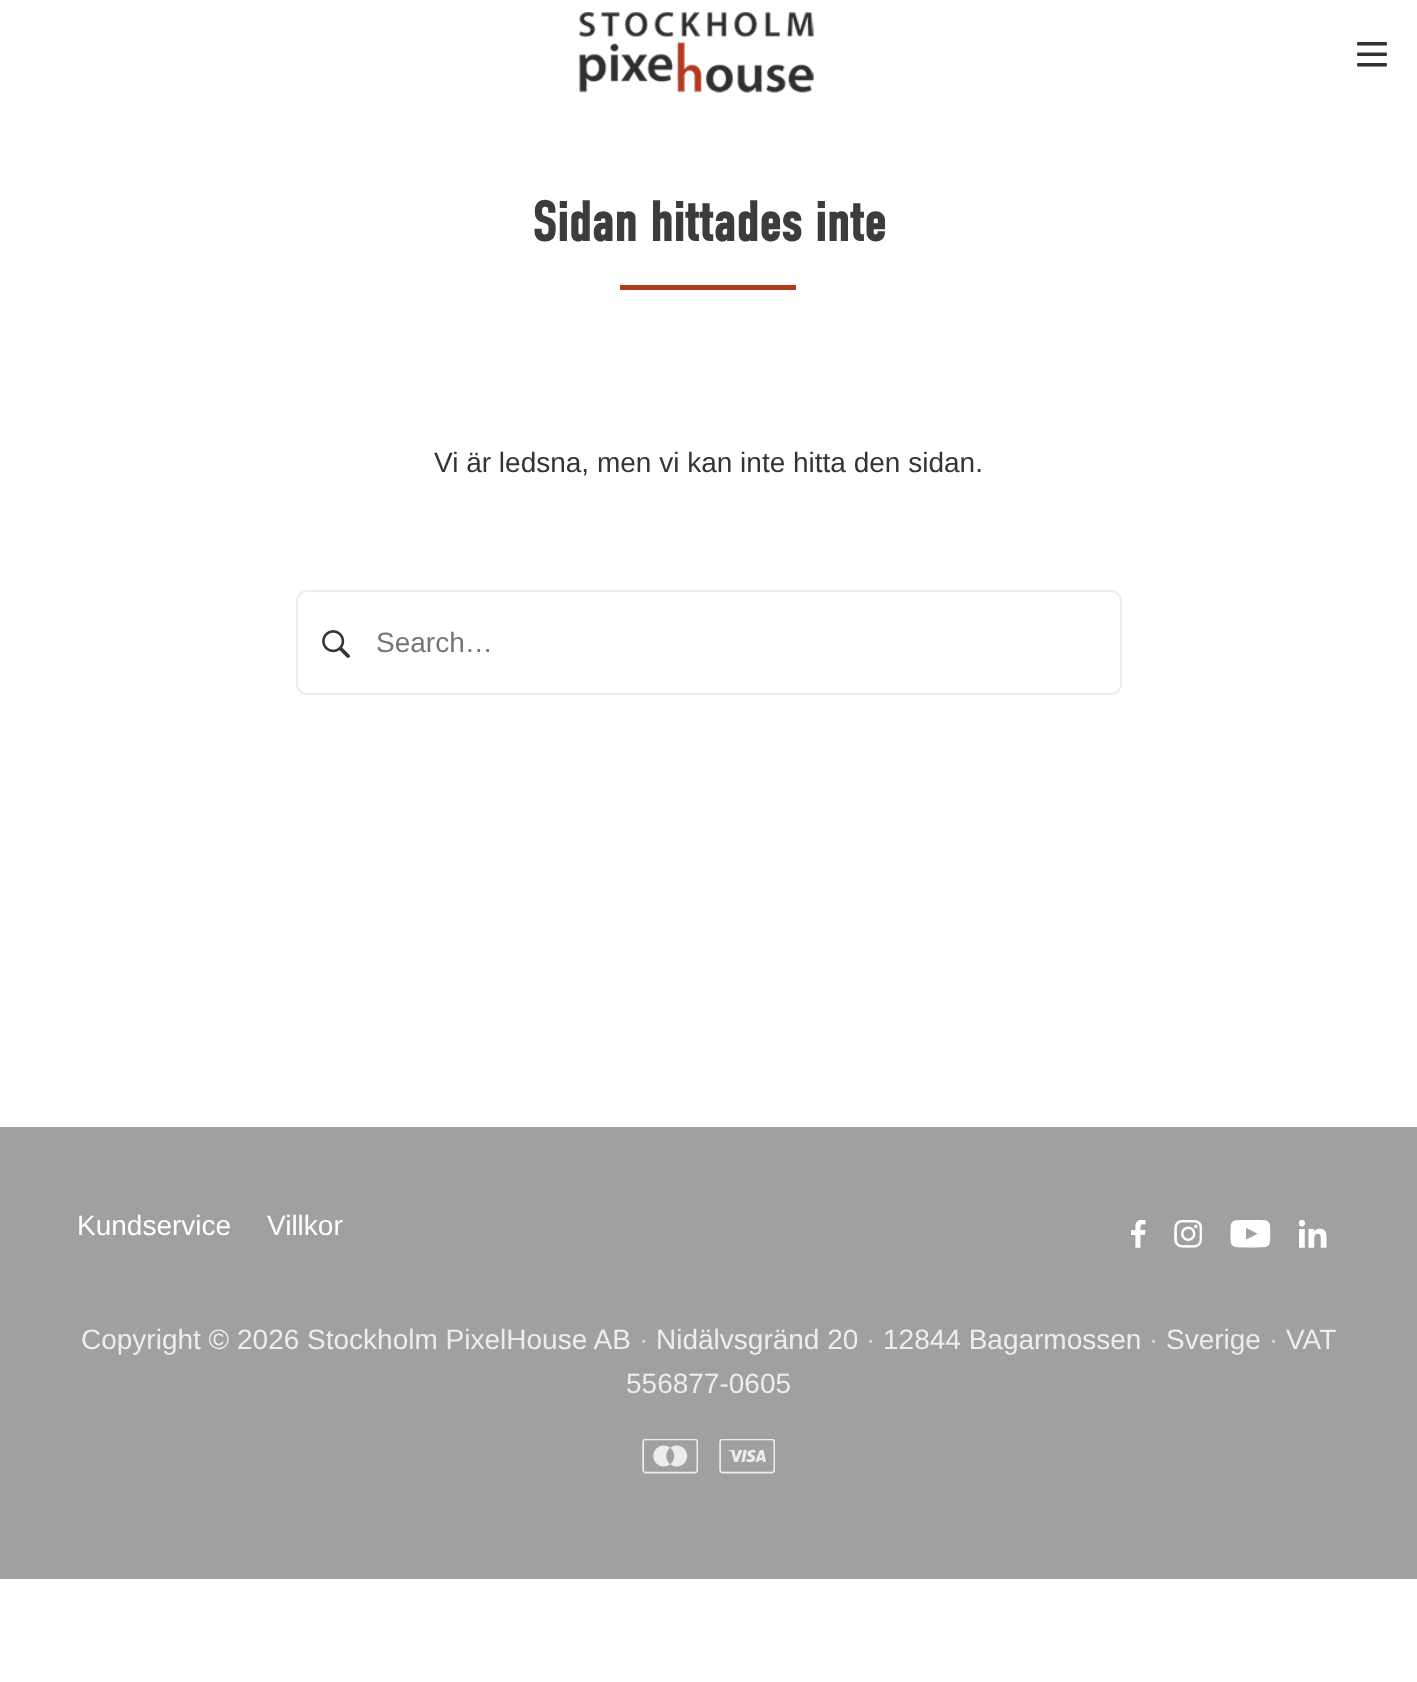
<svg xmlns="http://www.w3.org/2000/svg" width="1417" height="1682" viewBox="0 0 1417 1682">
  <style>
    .t1 { font: bold 56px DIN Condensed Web; fill: #3d3b3b; }
    .t2 { font: 28px Liberation Sans; fill: #343434; }
    .t3 { font: 28px Liberation Sans; fill: #757575; }
    .t4 { font: 28px Liberation Sans; fill: #fff; }
    .t5 { font: 28px Liberation Sans; fill: #eeeded; }
    .t6 { font: 28px Liberation Sans; fill: #d5d4d4; }
  </style>
  <rect width="100%" height="100%" fill="#fff"/>
  <image x="579" y="12" width="235" height="81" href="images/1.png"/>
  <image x="1357" y="42" width="30" height="25" href="images/2.png"/>
  <text x="532" y="241" class="t1">Sidan hittades inte</text>
  <rect x="620" y="285" width="176" height="5" fill="#b23b1f"/>
  <text x="434" y="472" class="t2">Vi är ledsna, men vi kan inte hitta den sidan.</text>
  <rect x="297" y="591" width="824" height="103" rx="10" fill="none" stroke="#eeeded" stroke-width="2"/>
  <image x="322" y="630" width="28" height="28" href="images/3.png"/>
  <text x="376" y="652" class="t3">Search…</text>
  <rect x="0" y="1127" width="1417" height="452" fill="#a1a0a0"/>
  <text x="77" y="1235" class="t4">Kundservice</text>
  <text x="267" y="1235" class="t4">Villkor</text>
  <image x="1131" y="1220" width="15" height="28" href="images/4.png"/>
  <image x="1174" y="1220" width="28" height="28" href="images/5.png"/>
  <image x="1230" y="1220" width="41" height="28" href="images/6.png"/>
  <image x="1299" y="1220" width="28" height="28" href="images/7.png"/>
  <text x="81" y="1349" class="t5">Copyright © 2026 Stockholm PixelHouse AB</text>
  <text x="639" y="1349" class="t6">·</text>
  <text x="656" y="1349" class="t5">Nidälvsgränd 20</text>
  <text x="866" y="1349" class="t6">·</text>
  <text x="883" y="1349" class="t5">12844 Bagarmossen</text>
  <text x="1149" y="1349" class="t6">·</text>
  <text x="1166" y="1349" class="t5">Sverige</text>
  <text x="1269" y="1349" class="t6">·</text>
  <text x="1286" y="1349" class="t5">VAT</text>
  <text x="626" y="1393" class="t5">556877-0605</text>
  <image x="642" y="1439" width="56" height="35" href="images/8.png"/>
  <image x="719" y="1439" width="56" height="35" href="images/9.png"/>
</svg>
